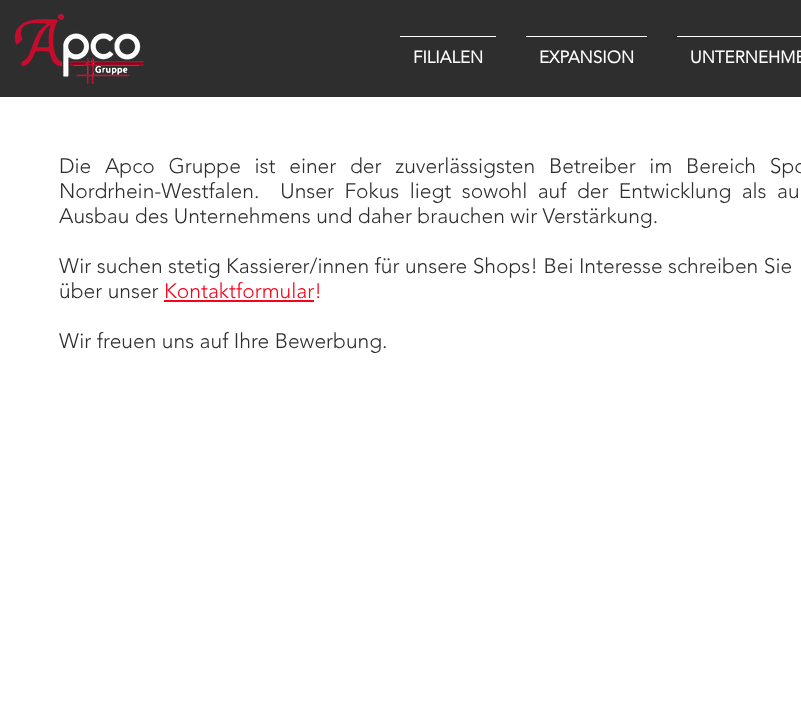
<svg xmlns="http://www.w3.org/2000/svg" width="801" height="723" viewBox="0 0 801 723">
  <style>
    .t1 { font: bold 17px 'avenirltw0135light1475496'; fill: #fff; }
    .t2 { font: 300 21px 'avenirltw0135light1475496'; fill: #2f2e2e; }
    .t3 { font: 300 21px 'avenirltw0135light1475496'; fill: #f60419; }
  </style>
  <rect width="100%" height="100%" fill="#fff"/>
  <rect x="0" y="0" width="801" height="97" fill="#2f2e2e"/>
  <image x="14" y="13" width="130" height="71" href="images/1.png"/>
  <rect x="400" y="36" width="96" height="1" fill="#fff"/>
  <text x="413" y="63" class="t1">FILIALEN</text>
  <rect x="526" y="36" width="121" height="1" fill="#fff"/>
  <text x="539" y="63" class="t1">EXPANSION</text>
  <rect x="677" y="36" width="124" height="1" fill="#fff"/>
  <text x="690" y="63" class="t1">UNTERNEHME</text>
  <text x="59" y="173" word-spacing="8.25" class="t2">Die Apco Gruppe ist einer der zuverlässigsten Betreiber im Bereich Spo</text>
  <text x="59" y="198" word-spacing="5" class="t2" xml:space="preserve">Nordrhein-Westfalen.  Unser Fokus liegt sowohl auf der Entwicklung als au</text>
  <text x="59" y="223" class="t2">Ausbau des Unternehmens und daher brauchen wir Verstärkung.</text>
  <text x="59" y="273" class="t2">Wir suchen stetig Kassierer/innen für unsere Shops! Bei Interesse schreiben Sie</text>
  <text x="59" y="298" class="t2">über unser</text>
  <text x="164" y="298" class="t3">Kontaktformular!</text>
  <rect x="164" y="300" width="150" height="2" fill="#f60419"/>
  <text x="59" y="348" class="t2">Wir freuen uns auf Ihre Bewerbung.</text>
</svg>
